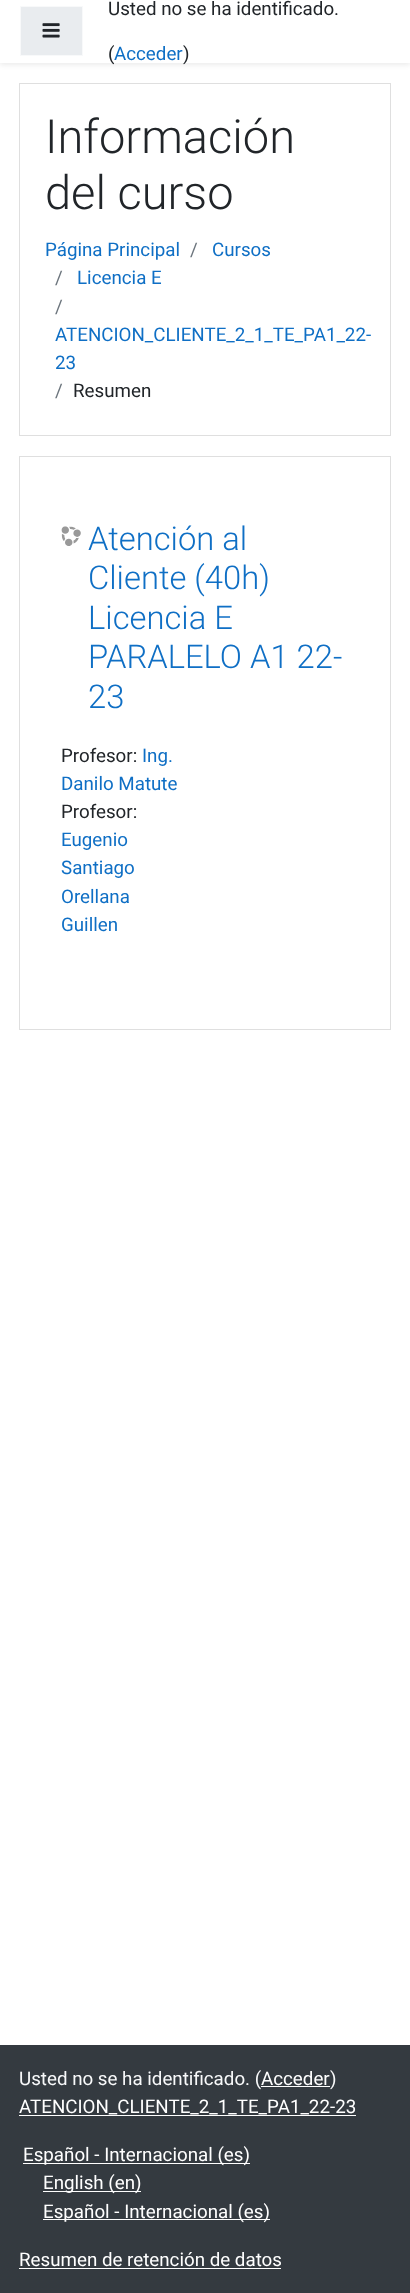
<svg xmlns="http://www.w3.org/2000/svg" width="410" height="2293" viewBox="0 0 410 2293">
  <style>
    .t1 { font: 18.75px Roboto; fill: #212529; }
    .t2 { font: 18.75px Roboto; fill: #0f6fc5; }
    .t3 { font: 300 47px Roboto; fill: #212529; }
    .t4 { font: 18.75px Roboto; fill: #6c757d; }
    .t5 { font: 300 32.75px Roboto; fill: #0f6fc5; }
    .t6 { font: 18.75px Roboto; fill: #f8f9fa; }
    .t7 { font: 18.75px Roboto; fill: #fff; }
  </style>
  <rect width="100%" height="100%" fill="#fff"/>
  <rect x="0" y="3" width="410" height="62" fill="#00000014" filter="blur(2.5px)"/>
  <rect x="0" y="0" width="410" height="63" fill="#fff"/>
  <rect x="20.5" y="6.5" width="62" height="49" fill="#e9ecef" stroke="#f8f9fa"/>
  <image x="42" y="23" width="18" height="15" href="images/1.png"/>
  <text x="108" y="15" class="t1">Usted no se ha identificado.</text>
  <text x="108" y="60" class="t1">(</text>
  <text x="114" y="60" class="t2">Acceder</text>
  <text x="183" y="60" class="t1">)</text>
  <rect x="19.5" y="83.5" width="371" height="352" fill="none" stroke="#dfdfdf"/>
  <text x="45" y="153" class="t3">Información</text>
  <text x="45" y="209" class="t3">del curso</text>
  <text x="45" y="256" class="t2">Página Principal</text>
  <text x="190" y="256" class="t4">/</text>
  <text x="212" y="256" class="t2">Cursos</text>
  <text x="55" y="284" class="t4">/</text>
  <text x="77" y="284" class="t2">Licencia E</text>
  <text x="55" y="313" class="t4">/</text>
  <text x="55" y="341" class="t2">ATENCION_CLIENTE_2_1_TE_PA1_22-</text>
  <text x="55" y="369" class="t2">23</text>
  <text x="55" y="397" class="t4">/</text>
  <text x="73" y="397" class="t1">Resumen</text>
  <rect x="19.5" y="456.5" width="371" height="573" fill="none" stroke="#dfdfdf"/>
  <image x="61" y="526" width="20" height="20" href="images/2.png"/>
  <text x="88" y="550" class="t5">Atención al</text>
  <text x="88" y="589" class="t5">Cliente (40h)</text>
  <text x="88" y="629" class="t5">Licencia E</text>
  <text x="88" y="668" class="t5">PARALELO A1 22-</text>
  <text x="88" y="708" class="t5">23</text>
  <text x="61" y="762" class="t1">Profesor:</text>
  <text x="142" y="762" class="t2">Ing.</text>
  <text x="61" y="790" class="t2">Danilo Matute</text>
  <text x="61" y="818" class="t1">Profesor:</text>
  <text x="61" y="846" class="t2">Eugenio</text>
  <text x="61" y="874" class="t2">Santiago</text>
  <text x="61" y="903" class="t2">Orellana</text>
  <text x="61" y="931" class="t2">Guillen</text>
  <rect x="0" y="2045" width="410" height="248" fill="#343a40"/>
  <text x="19" y="2085" class="t6">Usted no se ha identificado. (</text>
  <text x="261" y="2085" class="t7">Acceder</text>
  <rect x="261" y="2086" width="69" height="1" fill="#fff"/>
  <text x="330" y="2085" class="t6">)</text>
  <text x="19" y="2113" class="t7">ATENCION_CLIENTE_2_1_TE_PA1_22-23</text>
  <rect x="19" y="2115" width="337" height="1" fill="#fff"/>
  <rect x="23" y="2163" width="227" height="1" fill="#fff"/>
  <text x="23" y="2161" class="t7">Español - Internacional (es)</text>
  <rect x="43" y="2191" width="98" height="1" fill="#fff"/>
  <text x="43" y="2189" class="t7">English (en)</text>
  <rect x="43" y="2219" width="227" height="1" fill="#fff"/>
  <text x="43" y="2218" class="t7">Español - Internacional (es)</text>
  <text x="19" y="2266" class="t7">Resumen de retención de datos</text>
  <rect x="19" y="2268" width="262" height="1" fill="#fff"/>
</svg>
